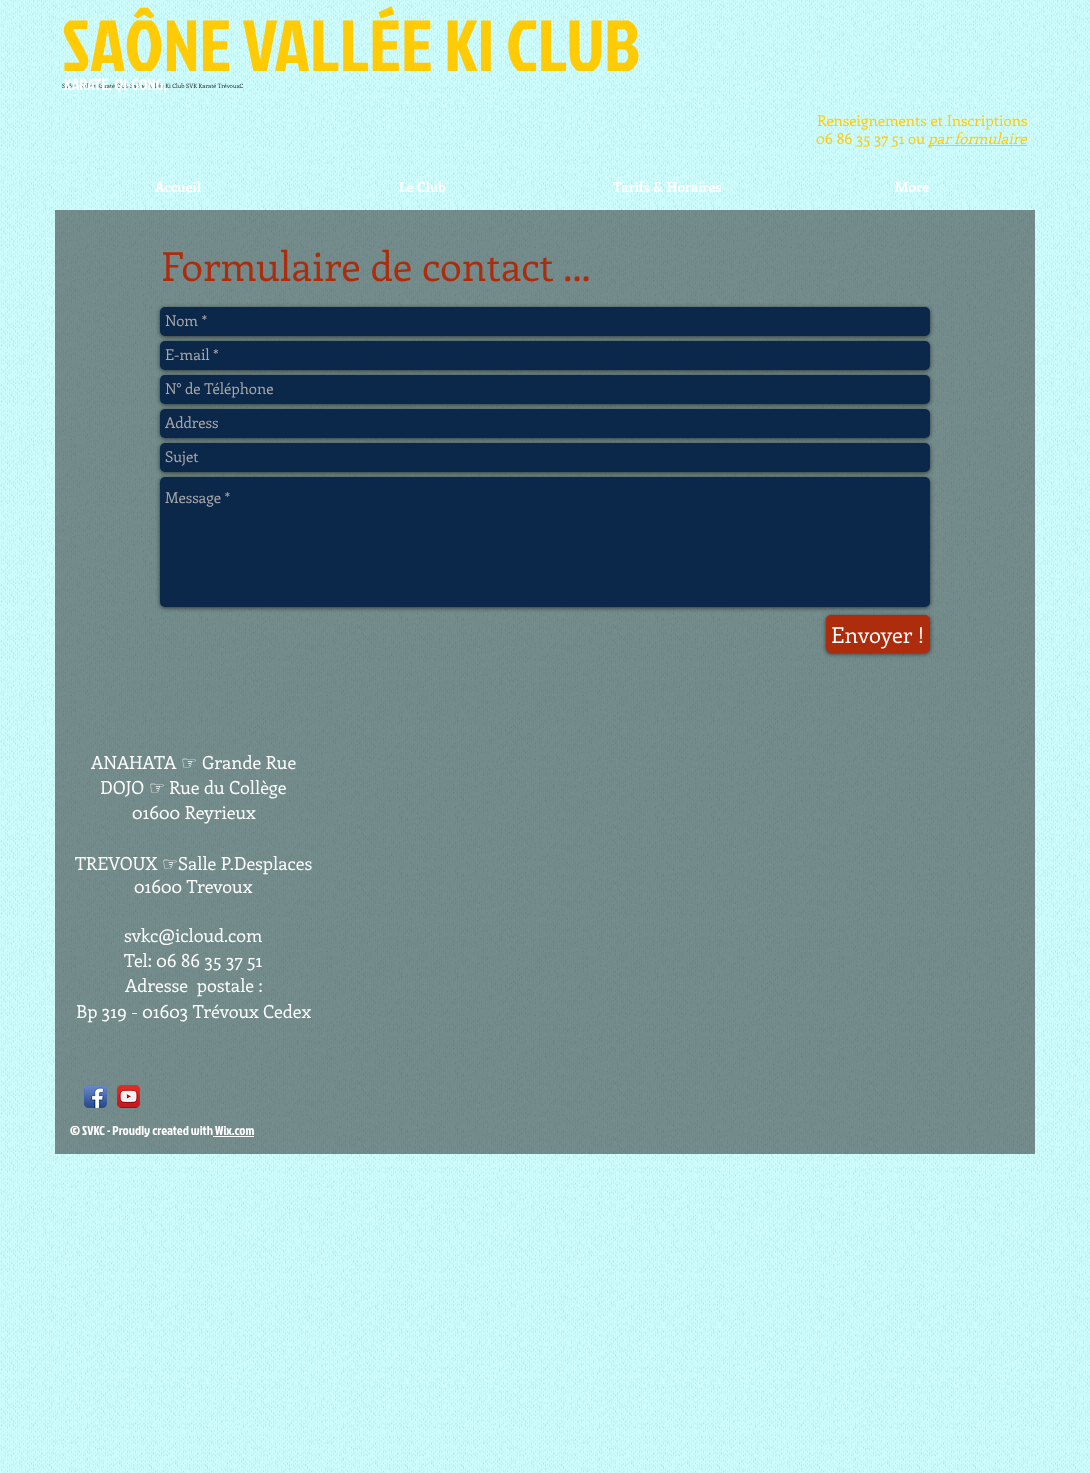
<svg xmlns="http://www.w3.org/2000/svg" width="1090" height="1473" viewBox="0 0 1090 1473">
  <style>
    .t1 { font: 72px Jockey One; fill: #ffcb05; }
    .t2 { font: 6px Enriqueta; fill: #1b1b1b; }
    .t3 { font: 16px Jockey One; fill: #fff; }
    .t4 { font: 15px Enriqueta; fill: #ffcb05; }
    .t5 { font: italic 15px Enriqueta; fill: #ffcb05; }
    .t6 { font: bold 14px Enriqueta; fill: #fff; }
    .t7 { font: 40px Enriqueta; fill: #ad2c0c; }
    .t8 { font: 15px Enriqueta; fill: #a9a9a9; }
    .t9 { font: 22px Enriqueta; fill: #fff; }
    .t10 { font: 18px Enriqueta; fill: #fff; }
    .t11 { font: 18px DejaVu Sans; fill: #fff; }
    .t12 { font: 13px Jockey One; fill: #fff; }
  </style>
  <rect width="100%" height="100%" fill="#cfffff"/>
  <image x="0" y="0" width="1090" height="1473" href="images/1.png"/>
  <text x="62" y="71" class="t1">SAÔNE VALLÉE KI CLUB</text>
  <text x="62" y="88" class="t2">Saône Vallée Karaté Club Saône Vallée Ki Club SVK Karaté TrévouxC</text>
  <text x="64" y="90" class="t3">KARATE, QI-GONG,</text>
  <text x="817" y="126" class="t4">Renseignements et Inscriptions</text>
  <text x="816" y="144" class="t4">06 86 35 37 51 ou</text>
  <rect x="928" y="145" width="99" height="1" fill="#ffcb05"/>
  <text x="928" y="144" class="t5">par formulaire</text>
  <text x="155" y="192" class="t6">Accueil</text>
  <text x="399" y="192" class="t6">Le Club</text>
  <text x="613" y="192" class="t6">Tarifs &amp; Horaires</text>
  <text x="895" y="192" class="t6">More</text>
  <rect x="55" y="210" width="980" height="500" fill="#1b1b1b80"/>
  <text x="161" y="281" class="t7">Formulaire de contact ...</text>
  <rect x="160" y="308" width="770" height="29" rx="5" fill="#00000099" filter="blur(2px)"/>
  <rect x="160" y="307" width="770" height="29" rx="5" fill="#0b2749"/>
  <text x="165" y="326" class="t8">Nom *</text>
  <rect x="160" y="342" width="770" height="29" rx="5" fill="#00000099" filter="blur(2px)"/>
  <rect x="160" y="341" width="770" height="29" rx="5" fill="#0b2749"/>
  <text x="165" y="360" class="t8">E-mail *</text>
  <rect x="160" y="376" width="770" height="29" rx="5" fill="#00000099" filter="blur(2px)"/>
  <rect x="160" y="375" width="770" height="29" rx="5" fill="#0b2749"/>
  <text x="165" y="394" class="t8">N° de Téléphone</text>
  <rect x="160" y="410" width="770" height="29" rx="5" fill="#00000099" filter="blur(2px)"/>
  <rect x="160" y="409" width="770" height="29" rx="5" fill="#0b2749"/>
  <text x="165" y="428" class="t8">Address</text>
  <rect x="160" y="444" width="770" height="29" rx="5" fill="#00000099" filter="blur(2px)"/>
  <rect x="160" y="443" width="770" height="29" rx="5" fill="#0b2749"/>
  <text x="165" y="462" class="t8">Sujet</text>
  <rect x="160" y="478" width="770" height="130" rx="5" fill="#00000099" filter="blur(2px)"/>
  <rect x="160" y="477" width="770" height="130" rx="5" fill="#0b2749"/>
  <text x="165" y="503" class="t8">Message *</text>
  <rect x="826" y="616" width="104" height="38" rx="5" fill="#00000099" filter="blur(2px)"/>
  <rect x="826" y="615" width="104" height="38" rx="5" fill="#ad2c0c"/>
  <text x="831" y="643" class="t9">Envoyer !</text>
  <rect x="55" y="710" width="980" height="444" fill="#1b1b1b80"/>
  <text x="91" y="769" class="t10">ANAHATA</text>
  <text x="181" y="769" class="t11">☞</text>
  <text x="202" y="769" class="t10">Grande Rue</text>
  <text x="100" y="794" class="t10">DOJO</text>
  <text x="149" y="794" class="t11">☞</text>
  <text x="169" y="794" class="t10">Rue du Collège</text>
  <text x="132" y="819" class="t10">01600 Reyrieux</text>
  <text x="75" y="870" class="t10">TREVOUX</text>
  <text x="162" y="870" class="t11">☞</text>
  <text x="178" y="870" class="t10">Salle P.Desplaces</text>
  <text x="134" y="893" class="t10">01600 Trevoux</text>
  <text x="124" y="942" class="t10">svkc@icloud.com</text>
  <text x="124" y="967" class="t10">Tel: 06 86 35 37 51</text>
  <text x="125" y="992" class="t10" xml:space="preserve">Adresse  postale :</text>
  <text x="76" y="1018" class="t10">Bp 319 - 01603 Trévoux Cedex</text>
  <image x="84" y="1085" width="23" height="23" href="images/2.png"/>
  <image x="117" y="1085" width="23" height="23" href="images/3.png"/>
  <text x="70" y="1135" class="t12">© SVKC - Proudly created with Wix.com</text>
  <rect x="213" y="1136" width="41" height="1" fill="#fff"/>
</svg>
